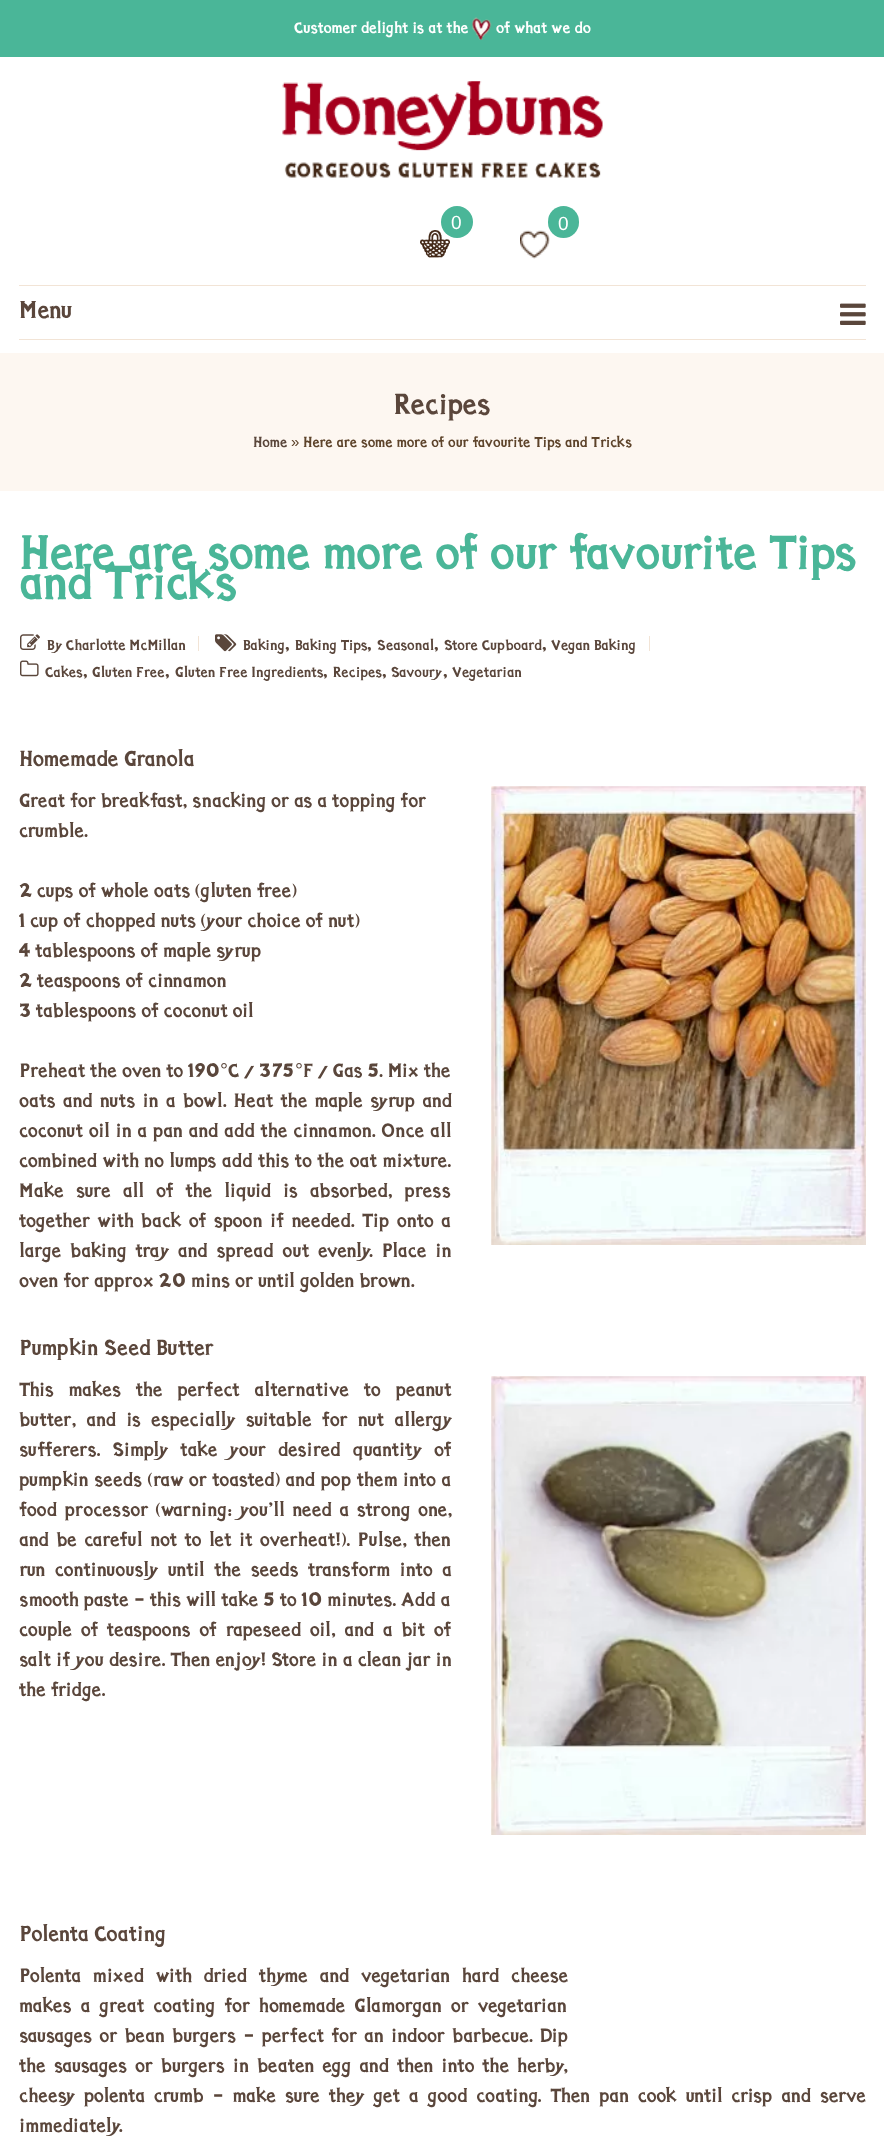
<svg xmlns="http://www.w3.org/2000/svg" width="884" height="2151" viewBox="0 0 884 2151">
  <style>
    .t1 { font: 16.25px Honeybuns; letter-spacing: 0.25px; fill: #fff; }
    .t2 { font: 19px Liberation Sans; fill: #fff; }
    .t3 { font: 19px Liberation Sans; letter-spacing: 0.25px; fill: #fff; }
    .t4 { font: 25px Honeybuns; letter-spacing: 0.25px; fill: #5a463b; }
    .t5 { font: 30px Honeybuns; letter-spacing: 0.25px; fill: #5a463b; }
    .t6 { font: 15px Honeybuns; letter-spacing: 0.25px; fill: #5a463b; }
    .t7 { font: 15px Liberation Sans; letter-spacing: 0.25px; fill: #5d432a; }
    .t8 { font: 15px Honeybuns; letter-spacing: 0.25px; fill: #5d432a; }
    .t9 { font: 50px Honeybuns; letter-spacing: 0.25px; fill: #4ab698; }
    .t10 { font: 20px Honeybuns; letter-spacing: 0.25px; fill: #5a463b; }
    .t11 { font: 22.5px Honeybuns; letter-spacing: 0.25px; fill: #5a463b; }
    .t12 { font: 20px Liberation Sans; letter-spacing: 0.25px; fill: #5a463b; }
  </style>
  <rect width="100%" height="100%" fill="#fff"/>
  <rect x="0" y="0" width="884" height="57" fill="#4ab698"/>
  <text x="294" y="33" class="t1">Customer delight is at the</text>
  <image x="472" y="17" width="20" height="23" href="images/1.png"/>
  <text x="496" y="33" class="t1">of what we do</text>
  <image x="282" y="81" width="321" height="97" href="images/2.png"/>
  <image x="420" y="230" width="30" height="28" href="images/3.png"/>
  <circle cx="457" cy="222" r="16" fill="#4ab698"/>
  <text x="451" y="229" class="t2">0</text>
  <image x="520" y="230" width="30" height="29" href="images/4.png"/>
  <rect x="548" y="206" width="31" height="32" rx="15.5" fill="#4ab698"/>
  <text x="558" y="230" class="t3">0</text>
  <rect x="19" y="285" width="847" height="1" fill="#f2e4d6"/>
  <rect x="19" y="339" width="847" height="1" fill="#f2e4d6"/>
  <text x="19" y="318" class="t4">Menu</text>
  <image x="840" y="303" width="26" height="22" href="images/5.png"/>
  <rect x="0" y="353" width="884" height="138" fill="#fdf7f1"/>
  <text x="394" y="414" class="t5">Recipes</text>
  <text x="253" y="447" class="t6">Home</text>
  <text x="291" y="447" class="t7">»</text>
  <text x="303" y="447" class="t8">Here are some more of our favourite Tips and Tricks</text>
  <text x="19" y="569" class="t9">Here are some more of our favourite Tips</text>
  <text x="19" y="599" class="t9">and Tricks</text>
  <image x="20" y="634" width="20" height="16" href="images/6.png"/>
  <text x="47" y="650" class="t6">By Charlotte McMillan</text>
  <rect x="198" y="636" width="1" height="15" fill="#f2e4d6"/>
  <image x="215" y="634" width="22" height="18" href="images/7.png"/>
  <text x="243" y="650" class="t6">Baking</text>
  <text x="285" y="650" class="t10">,</text>
  <text x="295" y="650" class="t6">Baking Tips</text>
  <text x="367" y="650" class="t10">,</text>
  <text x="377" y="650" class="t6">Seasonal</text>
  <text x="434" y="650" class="t10">,</text>
  <text x="444" y="650" class="t6">Store Cupboard</text>
  <text x="542" y="650" class="t10">,</text>
  <text x="551" y="650" class="t6">Vegan Baking</text>
  <rect x="649" y="636" width="1" height="15" fill="#f2e4d6"/>
  <image x="20" y="660" width="19" height="17" href="images/8.png"/>
  <text x="45" y="677" class="t6">Cakes</text>
  <text x="83" y="677" class="t10">,</text>
  <text x="92" y="677" class="t6">Gluten Free</text>
  <text x="165" y="677" class="t10">,</text>
  <text x="175" y="677" class="t6">Gluten Free Ingredients</text>
  <text x="323" y="677" class="t10">,</text>
  <text x="333" y="677" class="t6">Recipes</text>
  <text x="382" y="677" class="t10">,</text>
  <text x="391" y="677" class="t6">Savoury</text>
  <text x="443" y="677" class="t10">,</text>
  <text x="452" y="677" class="t6">Vegetarian</text>
  <text x="19" y="766" class="t11">Homemade Granola</text>
  <text x="19" y="807" class="t10">Great for breakfast, snacking or as a topping for</text>
  <text x="19" y="837" class="t10">crumble.</text>
  <image x="491" y="786" width="375" height="459" href="images/9.png"/>
  <text x="19" y="897" class="t10">2 cups of whole oats (gluten free)</text>
  <text x="19" y="927" class="t10">1 cup of chopped nuts (your choice of nut)</text>
  <text x="19" y="957" class="t10">4 tablespoons of maple syrup</text>
  <text x="19" y="987" class="t10">2 teaspoons of cinnamon</text>
  <text x="19" y="1017" class="t10">3 tablespoons of coconut oil</text>
  <text x="19" y="1077" class="t10">Preheat the oven to 190</text>
  <text x="220" y="1077" class="t12">°</text>
  <text x="228" y="1077" class="t10">C / 375</text>
  <text x="295" y="1077" class="t12">°</text>
  <text x="303" y="1077" class="t10">F / Gas 5. Mix the</text>
  <text x="19" y="1107" word-spacing="2.25" class="t10">oats and nuts in a bowl. Heat the maple syrup and</text>
  <text x="19" y="1137" word-spacing="0.75" class="t10">coconut oil in a pan and add the cinnamon. Once all</text>
  <text x="19" y="1167" word-spacing="0.5" class="t10">combined with no lumps add this to the oat mixture.</text>
  <text x="19" y="1197" word-spacing="7" class="t10">Make sure all of the liquid is absorbed, press</text>
  <text x="19" y="1227" word-spacing="2.5" class="t10">together with back of spoon if needed. Tip onto a</text>
  <text x="19" y="1257" word-spacing="3.75" class="t10">large baking tray and spread out evenly. Place in</text>
  <text x="19" y="1287" class="t10">oven for approx 20 mins or until golden brown.</text>
  <text x="19" y="1355" class="t11">Pumpkin Seed Butter</text>
  <text x="19" y="1396" word-spacing="9.75" class="t10">This makes the perfect alternative to peanut</text>
  <text x="19" y="1426" word-spacing="5.25" class="t10">butter, and is especially suitable for nut allergy</text>
  <text x="19" y="1456" word-spacing="7.25" class="t10">sufferers. Simply take your desired quantity of</text>
  <text x="19" y="1486" word-spacing="0.5" class="t10">pumpkin seeds (raw or toasted) and pop them into a</text>
  <text x="19" y="1516" word-spacing="2.5" class="t10">food processor (warning: you’ll need a strong one,</text>
  <text x="19" y="1546" word-spacing="2.5" class="t10">and be careful not to let it overheat!). Pulse, then</text>
  <text x="19" y="1576" word-spacing="4.5" class="t10">run continuously until the seeds transform into a</text>
  <text x="19" y="1606" class="t10">smooth paste – this will take 5 to 10 minutes. Add a</text>
  <text x="19" y="1636" word-spacing="3.75" class="t10">couple of teaspoons of rapeseed oil, and a bit of</text>
  <text x="19" y="1666" word-spacing="0.25" class="t10">salt if you desire. Then enjoy! Store in a clean jar in</text>
  <text x="19" y="1696" class="t10">the fridge.</text>
  <image x="491" y="1376" width="375" height="459" href="images/10.png"/>
  <text x="19" y="1941" class="t11">Polenta Coating</text>
  <text x="19" y="1982" word-spacing="6.75" class="t10">Polenta mixed with dried thyme and vegetarian hard cheese</text>
  <text x="19" y="2012" word-spacing="4" class="t10">makes a great coating for homemade Glamorgan or vegetarian</text>
  <text x="19" y="2042" word-spacing="2.25" class="t10">sausages or bean burgers – perfect for an indoor barbecue. Dip</text>
  <text x="19" y="2072" word-spacing="3" class="t10">the sausages or burgers in beaten egg and then into the herby,</text>
  <text x="19" y="2102" word-spacing="3.9" class="t10">cheesy polenta crumb – make sure they get a good coating. Then pan cook until crisp and serve</text>
  <text x="19" y="2132" class="t10">immediately.</text>
</svg>
